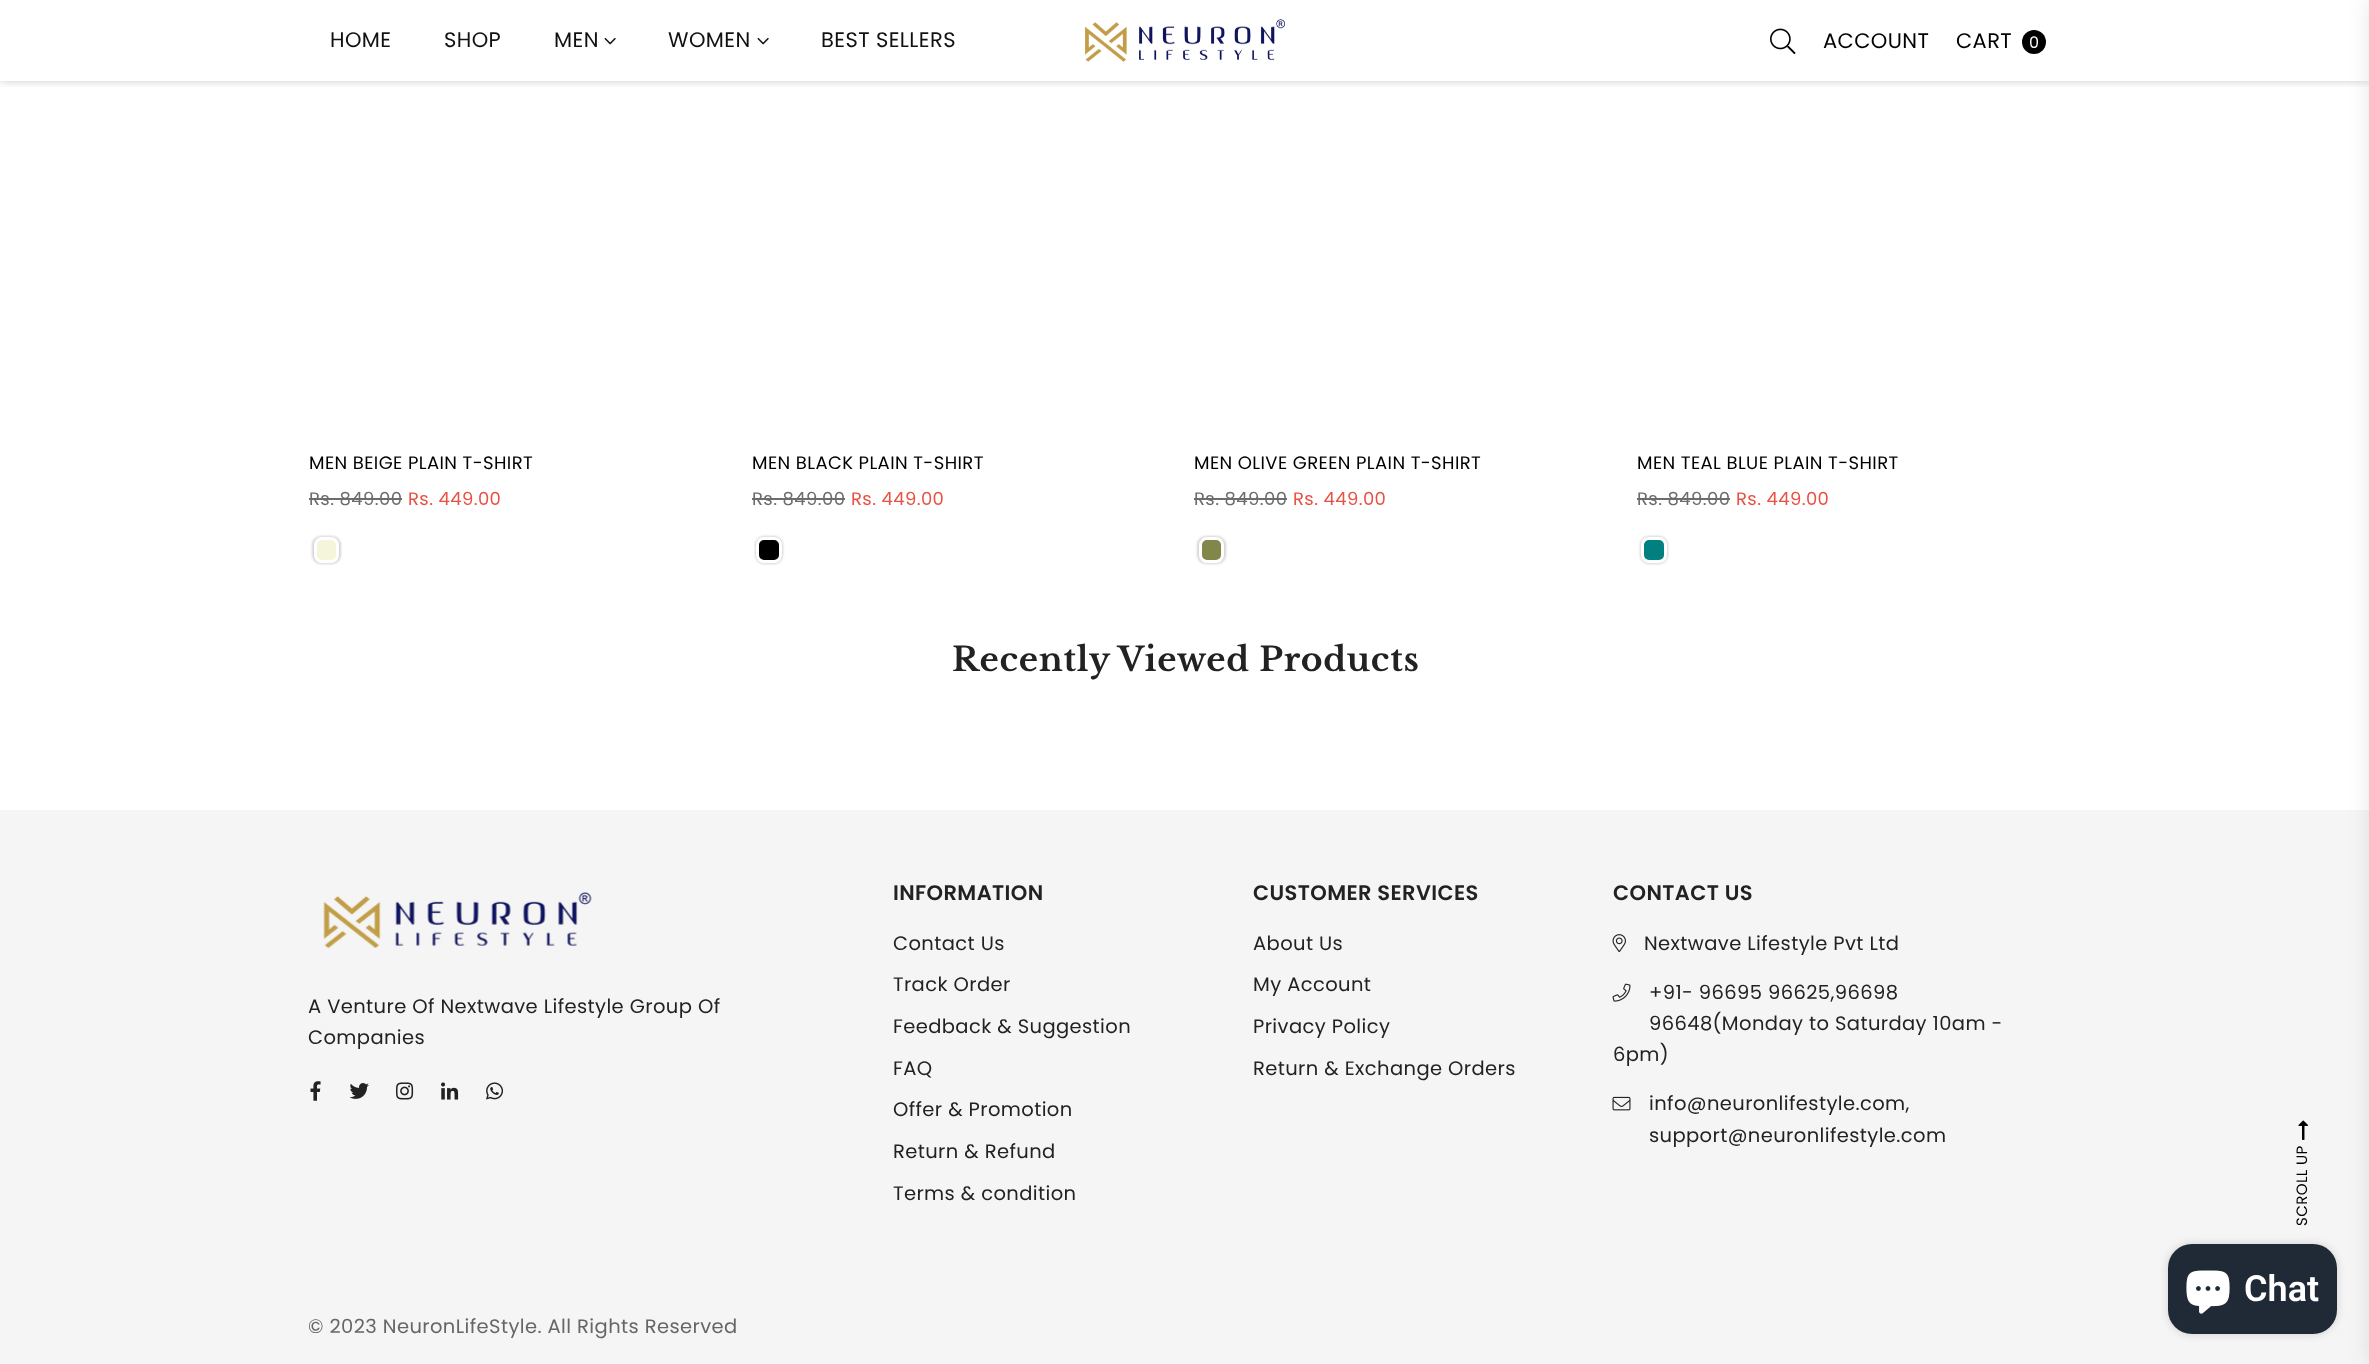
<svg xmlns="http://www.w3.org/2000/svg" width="2369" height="1364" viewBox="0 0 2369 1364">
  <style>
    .t1 { font: 21px Poppins; letter-spacing: 0.4px; fill: #111; }
    .t2 { font: 21px Poppins; letter-spacing: 0.4px; fill: #000; }
    .t3 { font: 16px Poppins; letter-spacing: 0.4px; fill: #fff; }
    .t4 { font: 18px Poppins; letter-spacing: 0.4px; fill: #000; }
    .t5 { font: 18px Poppins; letter-spacing: 0.4px; fill: #6b6c6c; }
    .t6 { font: 18px Poppins; letter-spacing: 0.4px; fill: #e95144; }
    .t7 { font: bold 33px Libre Baskerville; letter-spacing: 0.7px; fill: #222; }
    .t8 { font: 19.5px Poppins; letter-spacing: 0.4px; fill: #222; }
    .t9 { font: 600 21px Poppins; letter-spacing: 0.4px; fill: #222; }
    .t10 { font: 19.5px Poppins; letter-spacing: 0.4px; fill: #666; }
    .t11 { font: 15px Poppins; letter-spacing: 0.4px; fill: #000; }
    .t12 { font: 600 36px Roboto; fill: #fff; }
  </style>
  <defs>
    <clipPath id="clip1"><rect x="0" y="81" width="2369" height="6"/></clipPath>
  </defs>
  <rect width="100%" height="100%" fill="#fff"/>
  <g clip-path="url(#clip1)">
    <rect x="0" y="0" width="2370" height="81" fill="#00000033" filter="blur(5px)"/>
  </g>
  <text x="330" y="47" class="t1">HOME</text>
  <text x="444" y="47" class="t1">SHOP</text>
  <text x="554" y="47" class="t1">MEN</text>
  <image x="604" y="37" width="12" height="8" href="images/1.png"/>
  <text x="668" y="47" class="t1">WOMEN</text>
  <image x="757" y="37" width="12" height="8" href="images/1.png"/>
  <text x="821" y="47" class="t1">BEST SELLERS</text>
  <image x="1085" y="19" width="200" height="43" href="images/2.png"/>
  <image x="1770" y="28" width="26" height="26" href="images/3.png"/>
  <text x="1823" y="48" class="t2">ACCOUNT</text>
  <text x="1956" y="48" class="t2">CART</text>
  <circle cx="2034" cy="42" r="12" fill="#000"/>
  <text x="2029" y="48" class="t3">0</text>
  <rect x="0" y="810" width="2369" height="554" fill="#f5f5f5"/>
  <rect x="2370" y="0" width="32" height="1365" fill="#0000001a" filter="blur(11px)"/>
  <text x="309" y="469" class="t4">MEN BEIGE PLAIN T-SHIRT</text>
  <text x="309" y="505" class="t5">Rs. 849.00</text>
  <rect x="309" y="498" width="93" height="2" fill="#6b6c6c"/>
  <text x="408" y="505" class="t6">Rs. 449.00</text>
  <rect x="312" y="536" width="29" height="28" rx="9" fill="#d7d3d3" filter="blur(1px)"/>
  <rect x="315.5" y="538.5" width="22" height="23" rx="6.5" fill="#f5f5dc" stroke="#fff" stroke-width="3"/>
  <text x="752" y="469" class="t4">MEN BLACK PLAIN T-SHIRT</text>
  <text x="752" y="505" class="t5">Rs. 849.00</text>
  <rect x="752" y="498" width="93" height="2" fill="#6b6c6c"/>
  <text x="851" y="505" class="t6">Rs. 449.00</text>
  <rect x="755" y="536" width="28" height="28" rx="9" fill="#d7d3d3" filter="blur(1px)"/>
  <rect x="757.5" y="538.5" width="23" height="23" rx="6.5" fill="#000" stroke="#fff" stroke-width="3"/>
  <text x="1194" y="469" class="t4">MEN OLIVE GREEN PLAIN T-SHIRT</text>
  <text x="1194" y="505" class="t5">Rs. 849.00</text>
  <rect x="1194" y="498" width="93" height="2" fill="#6b6c6c"/>
  <text x="1293" y="505" class="t6">Rs. 449.00</text>
  <rect x="1197" y="536" width="29" height="28" rx="9" fill="#d7d3d3" filter="blur(1px)"/>
  <rect x="1200.5" y="538.5" width="22" height="23" rx="6.5" fill="#81864a" stroke="#fff" stroke-width="3"/>
  <text x="1637" y="469" class="t4">MEN TEAL BLUE PLAIN T-SHIRT</text>
  <text x="1637" y="505" class="t5">Rs. 849.00</text>
  <rect x="1637" y="498" width="93" height="2" fill="#6b6c6c"/>
  <text x="1736" y="505" class="t6">Rs. 449.00</text>
  <rect x="1640" y="536" width="28" height="28" rx="9" fill="#d7d3d3" filter="blur(1px)"/>
  <rect x="1642.5" y="538.5" width="23" height="23" rx="6.5" fill="#008080" stroke="#fff" stroke-width="3"/>
  <text x="952" y="671" class="t7">Recently Viewed Products</text>
  <image x="323" y="892" width="269" height="57" href="images/4.png"/>
  <text x="308" y="1013" class="t8">A Venture Of Nextwave Lifestyle Group Of</text>
  <text x="308" y="1044" class="t8">Companies</text>
  <image x="310" y="1081" width="11" height="20" href="images/5.png"/>
  <image x="349" y="1083" width="20" height="16" href="images/6.png"/>
  <image x="396" y="1082" width="18" height="18" href="images/7.png"/>
  <image x="441" y="1082" width="18" height="18" href="images/8.png"/>
  <image x="486" y="1082" width="18" height="18" href="images/9.png"/>
  <text x="893" y="900" class="t9">INFORMATION</text>
  <text x="893" y="950" class="t8">Contact Us</text>
  <text x="893" y="991" class="t8">Track Order</text>
  <text x="893" y="1033" class="t8">Feedback &amp; Suggestion</text>
  <text x="893" y="1075" class="t8">FAQ</text>
  <text x="893" y="1116" class="t8">Offer &amp; Promotion</text>
  <text x="893" y="1158" class="t8">Return &amp; Refund</text>
  <text x="893" y="1200" class="t8">Terms &amp; condition</text>
  <text x="1253" y="900" class="t9">CUSTOMER SERVICES</text>
  <text x="1253" y="950" class="t8">About Us</text>
  <text x="1253" y="991" class="t8">My Account</text>
  <text x="1253" y="1033" class="t8">Privacy Policy</text>
  <text x="1253" y="1075" class="t8">Return &amp; Exchange Orders</text>
  <text x="1613" y="900" class="t9">CONTACT US</text>
  <image x="1612" y="934" width="14" height="19" href="images/10.png"/>
  <text x="1644" y="950" class="t8">Nextwave Lifestyle Pvt Ltd</text>
  <image x="1612" y="983" width="19" height="19" href="images/11.png"/>
  <text x="1649" y="999" class="t8">+91- 96695 96625,96698</text>
  <text x="1649" y="1030" class="t8">96648(Monday to Saturday 10am -</text>
  <text x="1613" y="1061" class="t8">6pm)</text>
  <image x="1612" y="1096" width="19" height="15" href="images/12.png"/>
  <text x="1649" y="1110" class="t8">info@neuronlifestyle.com,</text>
  <text x="1649" y="1142" class="t8">support@neuronlifestyle.com</text>
  <text x="308" y="1333" class="t10">© 2023 NeuronLifeStyle. All Rights Reserved</text>
  <image x="2298" y="1120" width="11" height="20" href="images/13.png"/>
  <text x="2307" y="1226" transform="rotate(-90 2307 1226)" class="t11">SCROLL UP</text>
  <rect x="2168" y="1244" width="169" height="90" rx="24" fill="#00000026" filter="blur(4px)"/>
  <rect x="2168" y="1244" width="169" height="90" rx="24" fill="#202a36"/>
  <image x="2186" y="1270" width="44" height="44" href="images/14.png"/>
  <text x="2244" y="1301" class="t12">Chat</text>
</svg>
